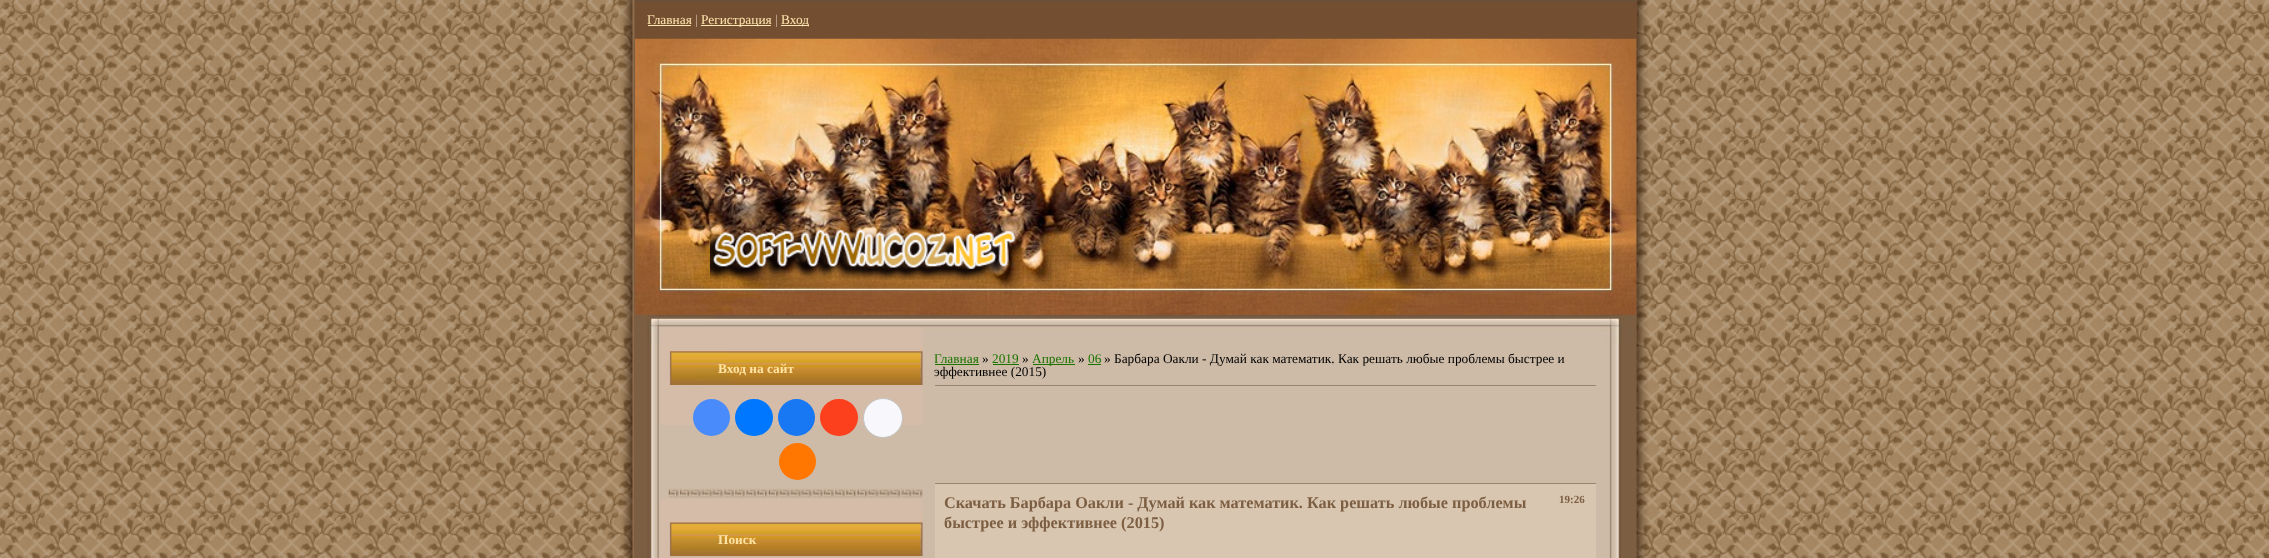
<svg xmlns="http://www.w3.org/2000/svg" width="2269" height="558" viewBox="0 0 2269 558">
  <style>
    .t1 { font: 13.35px Liberation Serif; fill: #ffe7af; }
    .t2 { font: 13.35px Liberation Serif; fill: #cdbba7; }
    .t3 { font: bold 13.35px Liberation Serif; fill: #ffe3a1; }
    .t4 { font: 13.35px Liberation Serif; fill: #1b7400; }
    .t5 { font: 13.35px Liberation Serif; fill: #000; }
    .t6 { font: bold 16.25px Liberation Serif; fill: #7c5e42; }
    .t7 { font: bold 11px Liberation Serif; fill: #7c5e42; }
  </style>
  <rect width="100%" height="100%" fill="#fff"/>
  <image x="0" y="0" width="2269" height="558" href="images/1.png"/>
  <rect x="635" y="0" width="1001" height="2" fill="#6a5039"/>
  <rect x="635" y="2" width="1002" height="37" fill="#734e31"/>
  <text x="647" y="24" class="t1">Главная</text>
  <rect x="648" y="25" width="43" height="1" fill="#ffe7af"/>
  <text x="695" y="24" class="t2">|</text>
  <rect x="701" y="25" width="70" height="1" fill="#ffe7af"/>
  <text x="701" y="24" class="t1">Регистрация</text>
  <text x="775" y="24" class="t2">|</text>
  <rect x="781" y="25" width="28" height="1" fill="#ffe7af"/>
  <text x="781" y="24" class="t1">Вход</text>
  <image x="635" y="38" width="1002" height="277" href="images/2.png"/>
  <image x="710" y="229" width="306" height="51" href="images/3.png"/>
  <image x="635" y="315" width="1002" height="243" href="images/4.png"/>
  <image x="645" y="315" width="992" height="29" href="images/5.png"/>
  <image x="668" y="488" width="255" height="10" href="images/6.png"/>
  <image x="660" y="327" width="263" height="58" href="images/7.png"/>
  <text x="718" y="373" class="t3">Вход на сайт</text>
  <rect x="660" y="385" width="263" height="40" fill="#d5bca8"/>
  <circle cx="711.5" cy="417.5" r="18.5" fill="#498bfa"/>
  <rect x="735" y="399" width="38" height="37" rx="18.5" fill="#07f"/>
  <circle cx="796.5" cy="417.5" r="18.5" fill="#1877f2"/>
  <rect x="820" y="399" width="38" height="37" rx="18.5" fill="#fc3f1d"/>
  <circle cx="883" cy="418" r="19.5" fill="#f8f8fc" stroke="#c4c4c4"/>
  <circle cx="797.5" cy="461.5" r="18.5" fill="#f70"/>
  <image x="660" y="499" width="263" height="58" href="images/8.png"/>
  <text x="718" y="544" class="t3">Поиск</text>
  <image x="660" y="556" width="263" height="2" href="images/9.png"/>
  <text x="934" y="363" class="t4">Главная</text>
  <rect x="935" y="364" width="44" height="1" fill="#1b7400"/>
  <text x="982" y="363" class="t5">»</text>
  <text x="992" y="363" class="t4">2019</text>
  <rect x="993" y="364" width="26" height="1" fill="#1b7400"/>
  <text x="1022" y="363" class="t5">»</text>
  <rect x="1033" y="364" width="42" height="1" fill="#1b7400"/>
  <text x="1032" y="363" class="t4">Апрель</text>
  <text x="1078" y="363" class="t5">»</text>
  <text x="1088" y="363" class="t4">06</text>
  <rect x="1088" y="364" width="13" height="1" fill="#1b7400"/>
  <text x="1104" y="363" class="t5">» Барбара Оакли - Думай как математик. Как решать любые проблемы быстрее и</text>
  <text x="934" y="376" class="t5">эффективнее (2015)</text>
  <rect x="935" y="385" width="661" height="1" fill="#9a846f"/>
  <rect x="935" y="484" width="661" height="74" fill="#d9c6b1"/>
  <rect x="935" y="483" width="661" height="1" fill="#9a846f"/>
  <text x="944" y="508" class="t6">Скачать Барбара Оакли - Думай как математик. Как решать любые проблемы</text>
  <text x="1559" y="503" class="t7">19:26</text>
  <text x="944" y="528" class="t6">быстрее и эффективнее (2015)</text>
</svg>
